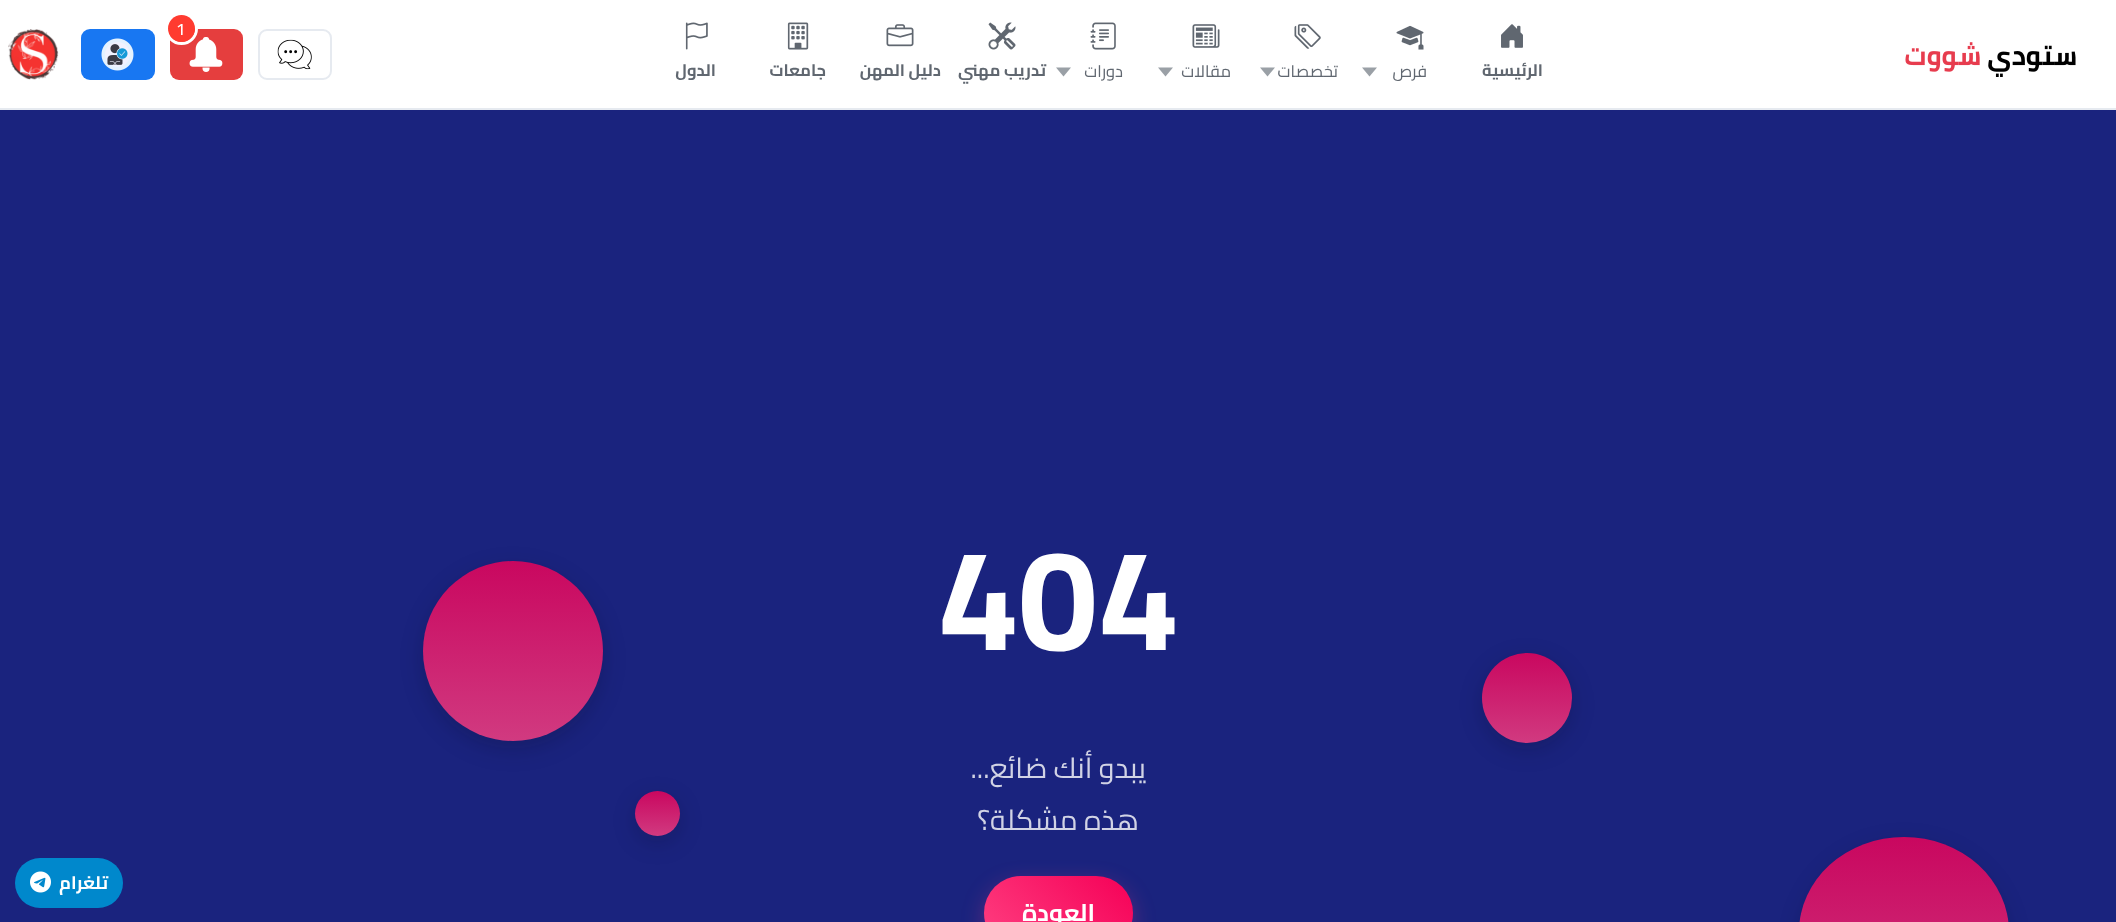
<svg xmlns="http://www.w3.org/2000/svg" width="2116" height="922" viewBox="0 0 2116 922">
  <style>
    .t1 { font: 600 16.5px Cairo; fill: #fff; }
    .t2 { font: bold 16.5px Cairo; direction: rtl; fill: #606770; }
    .t3 { font: 16.5px Cairo; direction: rtl; fill: #606770; }
    .t4 { font: bold 144px Cairo; fill: #fff; }
    .t5 { font: 28.75px Cairo; direction: rtl; fill: #d1d3e5; }
    .t6 { font: bold 24px Cairo; direction: rtl; fill: #fff; }
    .t7 { font: bold 18px Cairo; direction: rtl; fill: #fff; }
  </style>
  <defs>
    <linearGradient id="g1" gradientUnits="userSpaceOnUse" x1="1527" y1="743" x2="1527" y2="653"><stop offset="0" stop-color="#d13a80"/><stop offset="1" stop-color="#c9075f"/></linearGradient>
    <linearGradient id="g2" gradientUnits="userSpaceOnUse" x1="1003" y1="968" x2="1114" y2="857"><stop offset="0" stop-color="#ff4081"/><stop offset="1" stop-color="#f50057"/></linearGradient>
    <linearGradient id="g3" gradientUnits="userSpaceOnUse" x1="513" y1="741" x2="513" y2="561"><stop offset="0" stop-color="#d13a80"/><stop offset="1" stop-color="#c9075f"/></linearGradient>
    <linearGradient id="g4" gradientUnits="userSpaceOnUse" x1="1904" y1="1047" x2="1904" y2="837"><stop offset="0" stop-color="#d13a80"/><stop offset="1" stop-color="#c9075f"/></linearGradient>
    <linearGradient id="g5" gradientUnits="userSpaceOnUse" x1="657" y1="836" x2="657" y2="791"><stop offset="0" stop-color="#d13a80"/><stop offset="1" stop-color="#c9075f"/></linearGradient>
  </defs>
  <rect width="100%" height="100%" fill="#1a237e"/>
  <rect x="0" y="0" width="2116" height="108" fill="#fff"/>
  <rect x="0" y="108" width="2116" height="2" fill="#e6eaf0"/>
  <rect x="259" y="30" width="72" height="49" rx="8" fill="none" stroke="#e6eaf0" stroke-width="2"/>
  <image x="277" y="39" width="35" height="31" href="images/1.png"/>
  <rect x="170" y="29" width="73" height="51" rx="9" fill="#e53e3e"/>
  <image x="189" y="37" width="34" height="35" href="images/2.png"/>
  <circle cx="181.5" cy="28.5" r="15" fill="none" stroke="#fff" stroke-width="3"/>
  <circle cx="181.5" cy="28.5" r="13.5" fill="#ff3b30"/>
  <text x="176" y="35" class="t1">1</text>
  <rect x="81" y="29" width="74" height="51" rx="9" fill="#1877f2"/>
  <image x="101" y="38" width="33" height="33" href="images/3.png"/>
  <image x="8" y="29" width="51" height="51" href="images/4.png"/>
  <image x="1905" y="42" width="171" height="35" href="images/5.png"/>
  <image x="1501" y="24" width="22" height="24" href="images/6.png"/>
  <text x="1543" y="76" class="t2">الرئيسية</text>
  <image x="1396" y="25" width="28" height="25" href="images/7.png"/>
  <text x="1427" y="77" class="t3">فرص</text>
  <path d="M1362 67.5H1377L1369.5 76.5Z" fill="#9aa0a6"/>
  <image x="1294" y="24" width="27" height="25" href="images/8.png"/>
  <text x="1338" y="77" class="t3">تخصصات</text>
  <path d="M1260 67.5H1275L1267.5 76.5Z" fill="#9aa0a6"/>
  <image x="1192" y="24" width="28" height="24" href="images/9.png"/>
  <text x="1231" y="77" class="t3">مقالات</text>
  <path d="M1158 67.5H1173L1165.5 76.5Z" fill="#9aa0a6"/>
  <image x="1090" y="22" width="26" height="28" href="images/10.png"/>
  <text x="1123" y="77" class="t3">دورات</text>
  <path d="M1056 67.5H1071L1063.5 76.5Z" fill="#9aa0a6"/>
  <image x="988" y="22" width="28" height="28" href="images/11.png"/>
  <text x="1046" y="76" class="t2">تدريب مهني</text>
  <image x="886" y="24" width="28" height="23" href="images/12.png"/>
  <text x="941" y="76" class="t2">دليل المهن</text>
  <image x="787" y="22" width="22" height="28" href="images/13.png"/>
  <text x="826" y="76" class="t2">جامعات</text>
  <image x="685" y="22" width="23" height="28" href="images/14.png"/>
  <text x="716" y="76" class="t2">الدول</text>
  <rect x="1482" y="660" width="90" height="90" rx="45" fill="#05071933" filter="blur(11px)"/>
  <circle cx="1527" cy="698" r="45" fill="url(#g1)"/>
  <text x="938" y="650" class="t4">404</text>
  <text x="1146" y="778" class="t5">يبدو أنك ضائع...</text>
  <text x="1139" y="830" class="t5">هذه مشكلة؟</text>
  <rect x="984" y="884" width="149" height="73" rx="36.5" fill="#ff40814d" filter="blur(11px)"/>
  <rect x="984" y="876" width="149" height="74" rx="37" fill="url(#g2)"/>
  <text x="1095" y="921" class="t6">العودة</text>
  <rect x="423" y="569" width="180" height="180" rx="90" fill="#05071933" filter="blur(11px)"/>
  <circle cx="513" cy="651" r="90" fill="url(#g3)"/>
  <rect x="1799" y="845" width="210" height="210" rx="105" fill="#05071933" filter="blur(11px)"/>
  <rect x="1799" y="837" width="210" height="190" rx="105" fill="url(#g4)"/>
  <rect x="635" y="798" width="45" height="45" rx="22.5" fill="#05071933" filter="blur(11px)"/>
  <circle cx="657.5" cy="813.5" r="22.5" fill="url(#g5)"/>
  <rect x="15" y="858" width="108" height="50" rx="25" fill="#08c"/>
  <text x="108" y="889" class="t7">تلغرام</text>
  <image x="30" y="871" width="21" height="22" href="images/15.png"/>
</svg>
